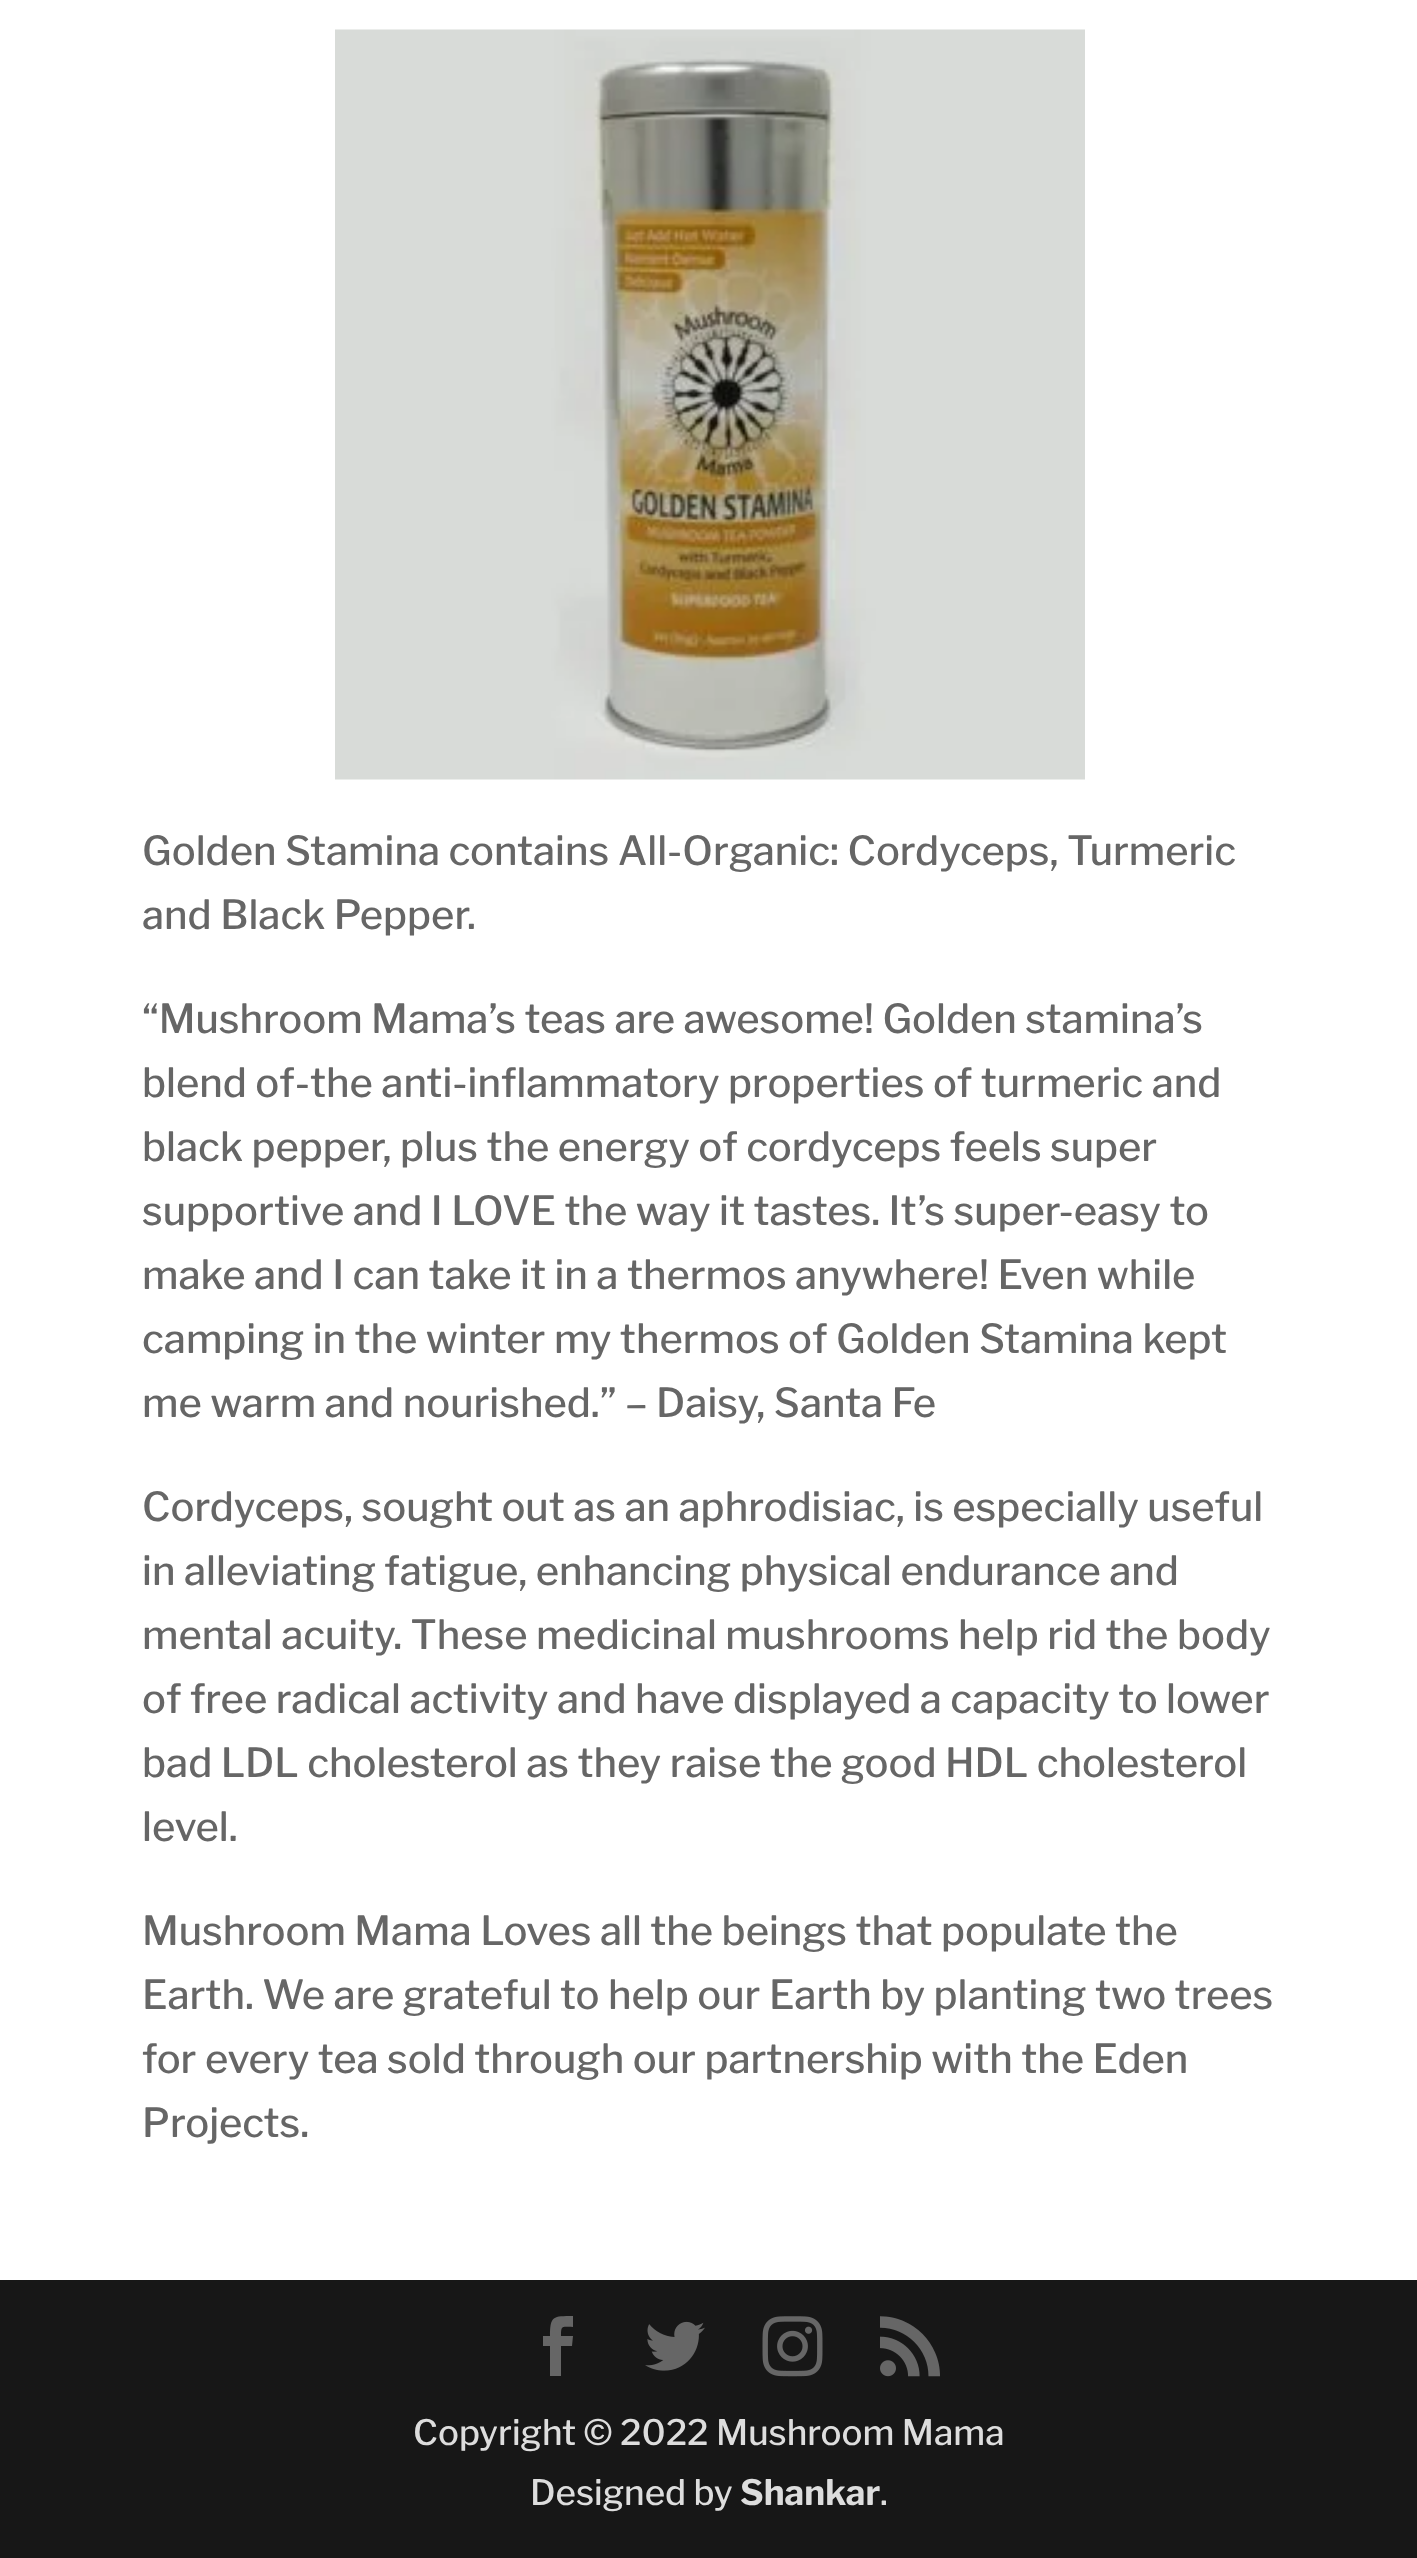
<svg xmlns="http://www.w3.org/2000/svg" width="1417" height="2558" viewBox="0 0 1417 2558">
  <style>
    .t1 { font: 500 40px Libre Franklin; fill: #666; }
    .t2 { font: 500 35px Libre Franklin; fill: #ddd; }
    .t3 { font: bold 35px Libre Franklin; fill: #ddd; }
  </style>
  <rect width="100%" height="100%" fill="#fff"/>
  <image x="335" y="29" width="750" height="751" href="images/1.png"/>
  <text x="142" y="865" class="t1">Golden Stamina contains All-Organic: Cordyceps, Turmeric</text>
  <text x="142" y="929" class="t1">and Black Pepper.</text>
  <text x="142" y="1033" class="t1">“Mushroom Mama’s teas are awesome! Golden stamina’s</text>
  <text x="142" y="1097" class="t1">blend of-the anti-inflammatory properties of turmeric and</text>
  <text x="142" y="1161" class="t1">black pepper, plus the energy of cordyceps feels super</text>
  <text x="142" y="1225" class="t1">supportive and I LOVE the way it tastes. It’s super-easy to</text>
  <text x="142" y="1289" class="t1">make and I can take it in a thermos anywhere! Even while</text>
  <text x="142" y="1353" class="t1">camping in the winter my thermos of Golden Stamina kept</text>
  <text x="142" y="1417" class="t1">me warm and nourished.” – Daisy, Santa Fe</text>
  <text x="142" y="1521" class="t1">Cordyceps, sought out as an aphrodisiac, is especially useful</text>
  <text x="142" y="1585" class="t1">in alleviating fatigue, enhancing physical endurance and</text>
  <text x="142" y="1649" class="t1">mental acuity. These medicinal mushrooms help rid the body</text>
  <text x="142" y="1713" class="t1">of free radical activity and have displayed a capacity to lower</text>
  <text x="142" y="1777" class="t1">bad LDL cholesterol as they raise the good HDL cholesterol</text>
  <text x="142" y="1841" class="t1">level.</text>
  <text x="142" y="1945" class="t1">Mushroom Mama Loves all the beings that populate the</text>
  <text x="142" y="2009" class="t1">Earth. We are grateful to help our Earth by planting two trees</text>
  <text x="142" y="2073" class="t1">for every tea sold through our partnership with the Eden</text>
  <text x="142" y="2137" class="t1">Projects.</text>
  <rect x="0" y="2280" width="1417" height="278" fill="#171717"/>
  <path d="M550 2376H561V2346H572L573 2336H561C561 2325 562 2327 573 2327V2316C553 2316 550 2316 550 2336H543V2346H550Z" fill="#666"/>
  <image x="645" y="2321" width="60" height="50" href="images/2.png"/>
  <image x="762" y="2316" width="61" height="61" href="images/3.png"/>
  <image x="880" y="2316" width="60" height="61" href="images/4.png"/>
  <text x="413" y="2445" class="t2">Copyright © 2022 Mushroom Mama</text>
  <text x="530" y="2505" class="t2">Designed by</text>
  <text x="740" y="2505" class="t3">Shankar</text>
  <text x="880" y="2505" class="t2">.</text>
</svg>
